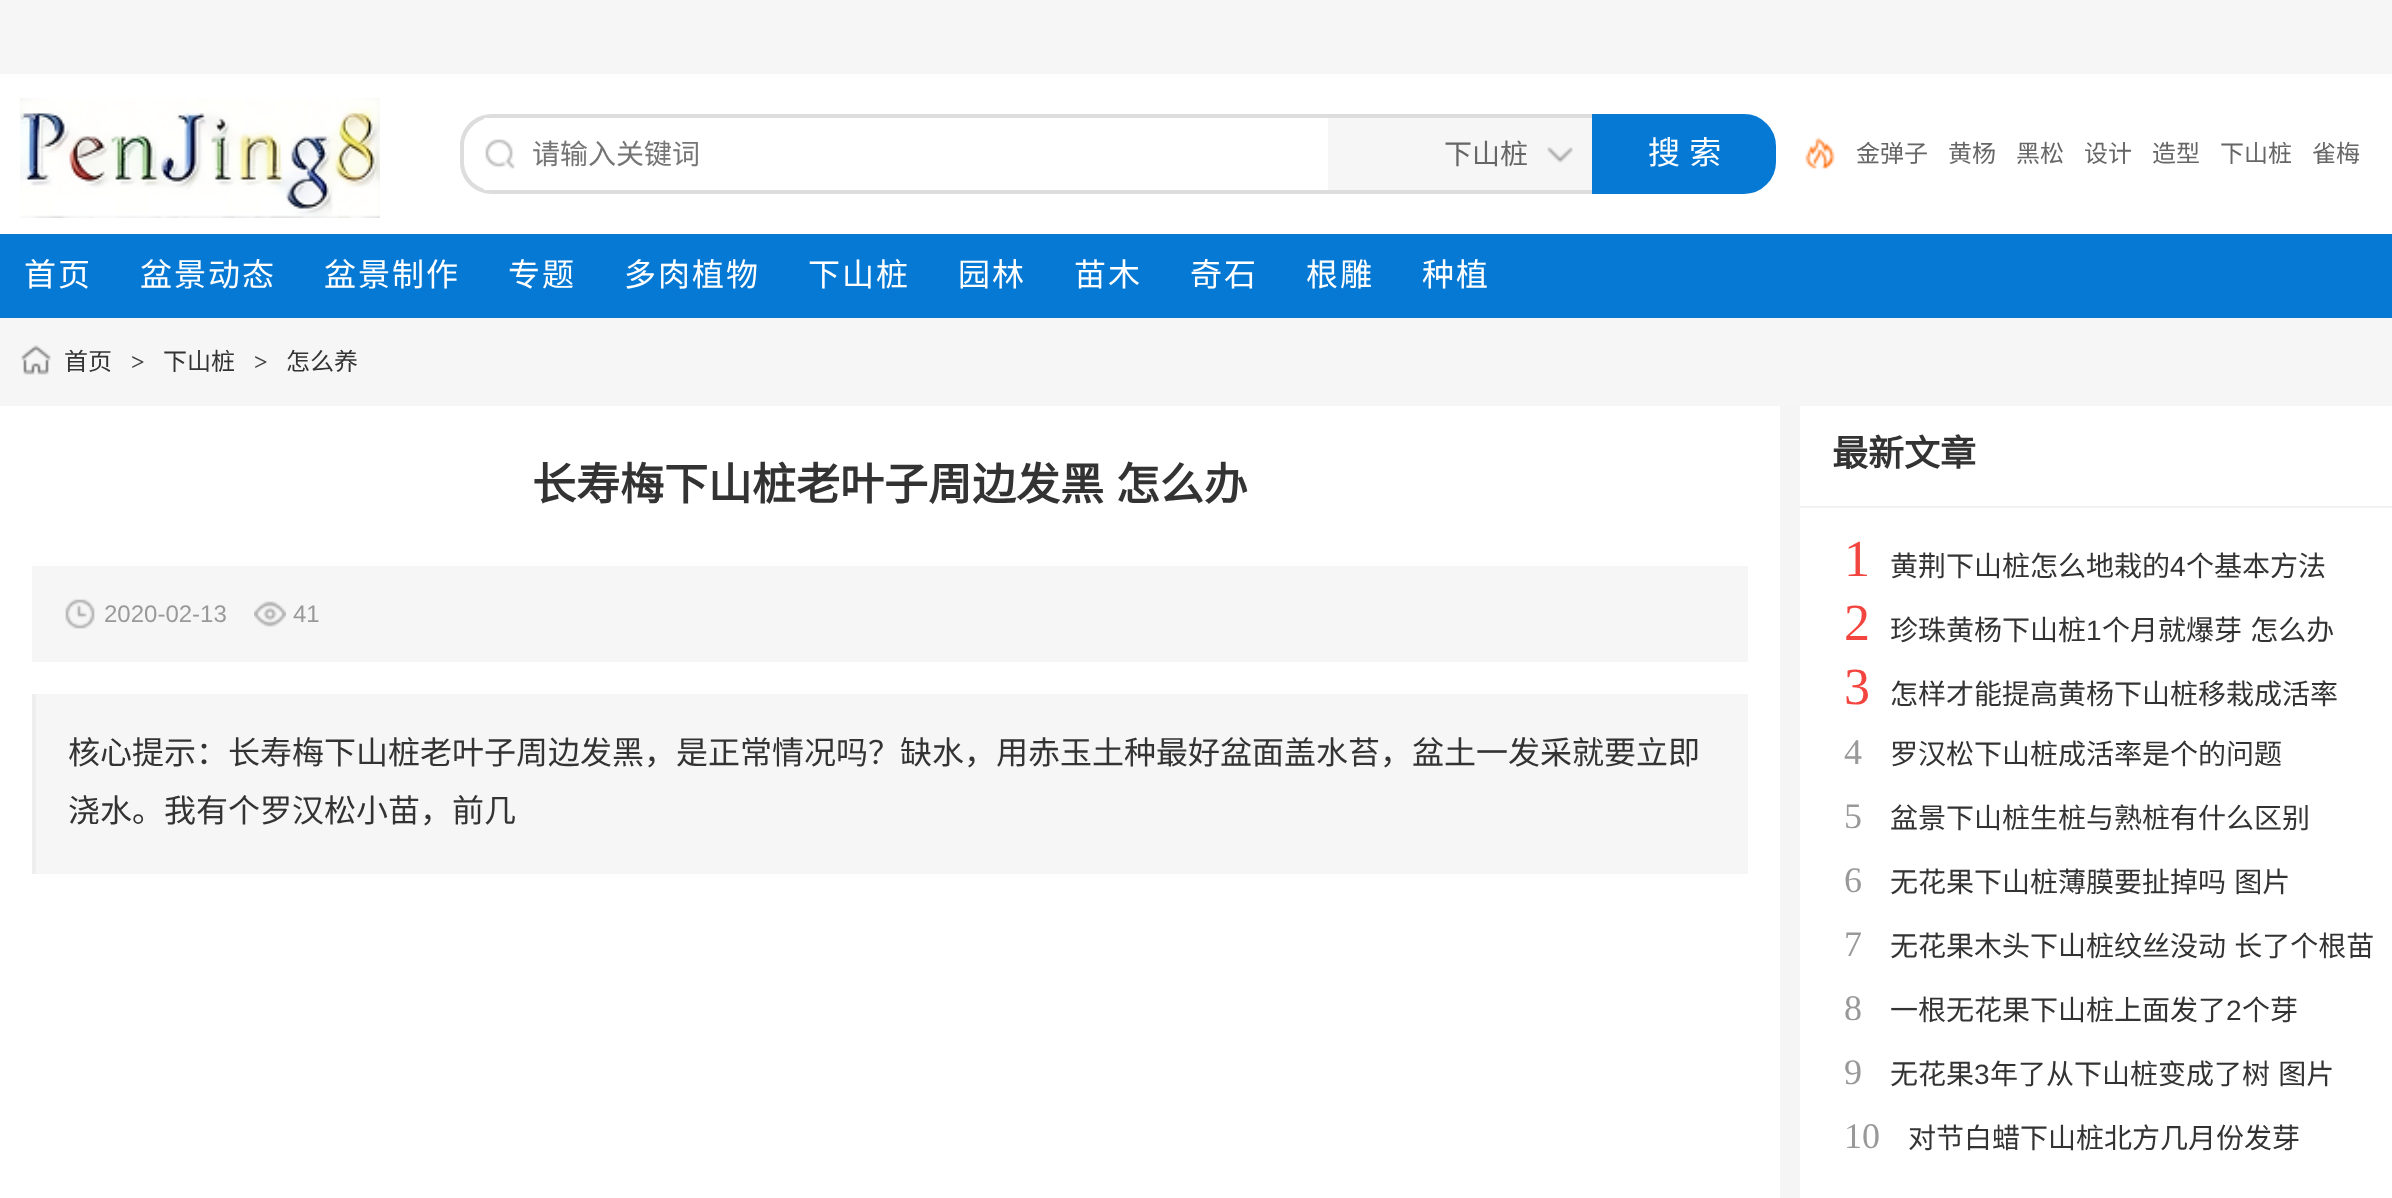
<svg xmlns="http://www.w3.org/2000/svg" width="2392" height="1198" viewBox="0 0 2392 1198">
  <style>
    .t1 { font: 28px Noto Sans CJK SC; fill: #757575; }
    .t2 { font: 28px Noto Sans CJK SC; fill: #666; }
    .t3 { font: 32px Noto Sans CJK SC; fill: #fff; }
    .t4 { font: 24px Noto Sans CJK SC; fill: #666; }
    .t5 { font: 32px Noto Sans CJK SC; letter-spacing: 2px; fill: #fff; }
    .t6 { font: 24px Noto Sans CJK SC; fill: #333; }
    .t7 { font: bold 24px Liberation Serif; fill: #444; }
    .t8 { font: bold 44px Noto Sans CJK SC; fill: #333; }
    .t9 { font: 24px Liberation Sans; fill: #999; }
    .t10 { font: 32px Noto Sans CJK SC; fill: #333; }
    .t11 { font: bold 36px Noto Sans CJK SC; fill: #333; }
    .t12 { font: 52px Liberation Serif; fill: #f34540; }
    .t13 { font: 28px Noto Sans CJK SC; fill: #333; }
    .t14 { font: 28px Liberation Sans; fill: #333; }
    .t15 { font: 36px Liberation Serif; fill: #999; }
  </style>
  <rect width="100%" height="100%" fill="#f6f6f6"/>
  <rect x="0" y="74" width="2392" height="160" fill="#fff"/>
  <image x="20" y="98" width="360" height="120" href="images/1.png"/>
  <path d="M492 114H1328V194H492C474 194 460 180 460 162V146C460 128 474 114 492 114ZM492 118H1328V190H492C477 190 464 177 464 162V146C464 131 477 118 492 118Z" fill="#ddd" fill-rule="evenodd"/>
  <rect x="484" y="118" width="7" height="72" fill="#fff"/>
  <image x="485" y="139" width="30" height="30" href="images/2.png"/>
  <text x="532" y="164" class="t1">请输入关键词</text>
  <rect x="1328" y="118" width="264" height="72" fill="#f6f6f6"/>
  <rect x="1328" y="114" width="264" height="4" fill="#ddd"/>
  <rect x="1328" y="190" width="264" height="4" fill="#ddd"/>
  <image x="1547" y="147" width="26" height="16" href="images/3.png"/>
  <text x="1444" y="164" class="t2">下山桩</text>
  <path d="M1594 116H1744C1760.5 116 1774 129.5 1774 146V162C1774 178.5 1760.5 192 1744 192H1594Z" fill="#0679d4" stroke="#0679d4" stroke-width="4"/>
  <text x="1648" y="164" word-spacing="2" class="t3">搜 索</text>
  <image x="1805" y="138" width="30" height="31" href="images/4.png"/>
  <text x="1856" y="162" class="t4">金弹子</text>
  <text x="1948" y="162" class="t4">黄杨</text>
  <text x="2016" y="162" class="t4">黑松</text>
  <text x="2084" y="162" class="t4">设计</text>
  <text x="2152" y="162" class="t4">造型</text>
  <text x="2220" y="162" class="t4">下山桩</text>
  <text x="2312" y="162" class="t4">雀梅</text>
  <rect x="0" y="234" width="2392" height="84" fill="#0679d4"/>
  <text x="24" y="286" class="t5">首页</text>
  <text x="140" y="286" class="t5">盆景动态</text>
  <text x="324" y="286" class="t5">盆景制作</text>
  <text x="508" y="286" class="t5">专题</text>
  <text x="624" y="286" class="t5">多肉植物</text>
  <text x="808" y="286" class="t5">下山桩</text>
  <text x="958" y="286" class="t5">园林</text>
  <text x="1074" y="286" class="t5">苗木</text>
  <text x="1190" y="286" class="t5">奇石</text>
  <text x="1306" y="286" class="t5">根雕</text>
  <text x="1422" y="286" class="t5">种植</text>
  <image x="21" y="345" width="30" height="30" href="images/5.png"/>
  <text x="64" y="370" class="t6">首页</text>
  <text x="131" y="370" class="t7">&gt;</text>
  <text x="163" y="370" class="t6">下山桩</text>
  <text x="254" y="370" class="t7">&gt;</text>
  <text x="286" y="370" class="t6">怎么养</text>
  <rect x="0" y="406" width="2392" height="792" fill="#fff"/>
  <rect x="1780" y="406" width="20" height="792" fill="#f5f5f5"/>
  <text x="532" y="500" word-spacing="2" class="t8">长寿梅下山桩老叶子周边发黑 怎么办</text>
  <rect x="32" y="566" width="1716" height="96" fill="#f6f6f6"/>
  <image x="65" y="599" width="30" height="30" href="images/6.png"/>
  <text x="104" y="622" class="t9">2020-02-13</text>
  <image x="254" y="601" width="32" height="26" href="images/7.png"/>
  <text x="293" y="622" class="t9">41</text>
  <rect x="36" y="694" width="1712" height="180" fill="#f6f6f6"/>
  <rect x="32" y="694" width="4" height="180" fill="#eee"/>
  <text x="68" y="764" class="t10">核心提示：长寿梅下山桩老叶子周边发黑，是正常情况吗？缺水，用赤玉土种最好盆面盖水苔，盆土一发采就要立即</text>
  <text x="68" y="822" class="t10">浇水。我有个罗汉松小苗，前几</text>
  <rect x="1800" y="506" width="592" height="2" fill="#f2f2f2"/>
  <text x="1832" y="466" class="t11">最新文章</text>
  <text x="1844" y="576" class="t12">1</text>
  <text x="1890" y="576" class="t13">黄荆下山桩怎么地栽的</text>
  <text x="2170" y="576" class="t14">4</text>
  <text x="2186" y="576" class="t13">个基本方法</text>
  <text x="1844" y="640" class="t12">2</text>
  <text x="1890" y="640" class="t13">珍珠黄杨下山桩</text>
  <text x="2086" y="640" class="t14">1</text>
  <text x="2102" y="640" word-spacing="2" class="t13">个月就爆芽 怎么办</text>
  <text x="1844" y="704" class="t12">3</text>
  <text x="1890" y="704" class="t13">怎样才能提高黄杨下山桩移栽成活率</text>
  <text x="1844" y="764" class="t15">4</text>
  <text x="1890" y="764" class="t13">罗汉松下山桩成活率是个的问题</text>
  <text x="1844" y="828" class="t15">5</text>
  <text x="1890" y="828" class="t13">盆景下山桩生桩与熟桩有什么区别</text>
  <text x="1844" y="892" class="t15">6</text>
  <text x="1890" y="892" word-spacing="2" class="t13">无花果下山桩薄膜要扯掉吗 图片</text>
  <text x="1844" y="956" class="t15">7</text>
  <text x="1890" y="956" word-spacing="2" class="t13">无花果木头下山桩纹丝没动 长了个根苗</text>
  <text x="1844" y="1020" class="t15">8</text>
  <text x="1890" y="1020" class="t13">一根无花果下山桩上面发了</text>
  <text x="2226" y="1020" class="t14">2</text>
  <text x="2242" y="1020" class="t13">个芽</text>
  <text x="1844" y="1084" class="t15">9</text>
  <text x="1890" y="1084" class="t13">无花果</text>
  <text x="1974" y="1084" class="t14">3</text>
  <text x="1990" y="1084" word-spacing="2" class="t13">年了从下山桩变成了树 图片</text>
  <text x="1844" y="1148" class="t15">10</text>
  <text x="1908" y="1148" class="t13">对节白蜡下山桩北方几月份发芽</text>
</svg>
